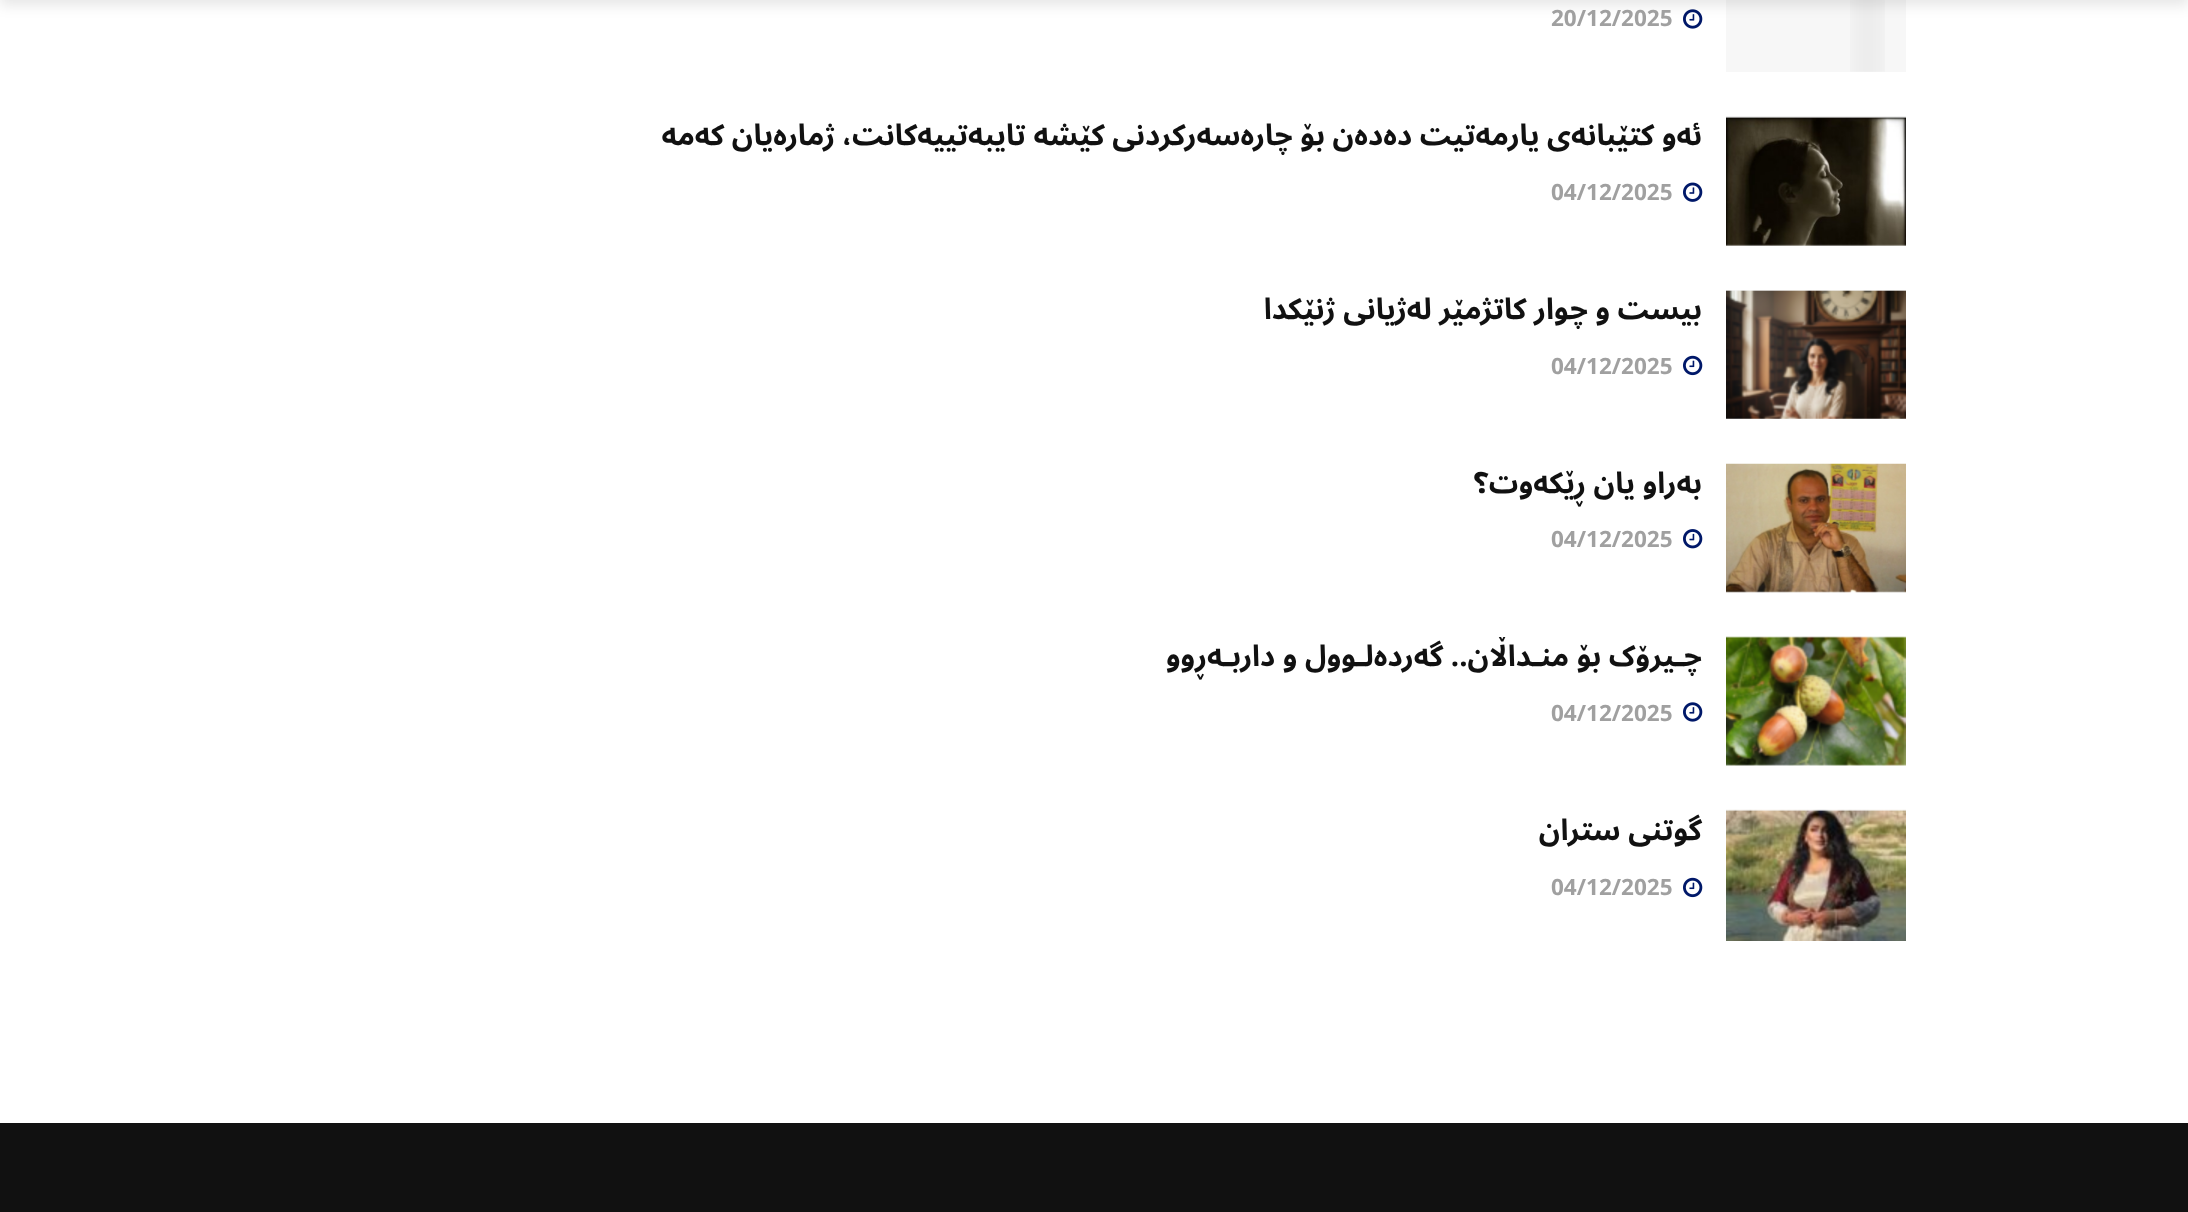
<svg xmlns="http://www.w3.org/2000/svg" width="2188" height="1212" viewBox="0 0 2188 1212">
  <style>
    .t1 { font: bold 22.5px Noto Sans Arabic; fill: #a0a0a0; }
    .t2 { font: bold 29.25px Noto Sans Arabic; direction: rtl; fill: #111; }
  </style>
  <defs>
    <clipPath id="clip1"><rect x="286" y="637" width="1620" height="128"/></clipPath>
  </defs>
  <rect width="100%" height="100%" fill="#fff"/>
  <rect x="1726" y="0" width="180" height="72" fill="#f7f7f7"/>
  <image x="1850" y="0" width="35" height="72" href="images/1.png"/>
  <image x="1683" y="9" width="20" height="20" href="images/2.png"/>
  <rect x="0" y="-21" width="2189" height="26" fill="#0000001a" filter="blur(7px)"/>
  <text x="1551" y="26" class="t1">20/12/2025</text>
  <rect x="1726" y="117" width="180" height="128" fill="#f7f7f7"/>
  <image x="1842" y="244" width="52" height="2" href="images/4.png"/>
  <image x="1726" y="116" width="180" height="130" href="images/3.png"/>
  <text x="1702" y="145" class="t2">ئه‌و کتێبانه‌ی یارمەتیت ده‌ده‌ن بۆ چارەسەرکردنی كێشه‌ تایبه‌تییه‌كانت، ‌ژماره‌یان كه‌مه‌</text>
  <image x="1683" y="182" width="20" height="20" href="images/5.png"/>
  <text x="1551" y="200" class="t1">04/12/2025</text>
  <rect x="1726" y="290" width="180" height="129" fill="#f7f7f7"/>
  <image x="1726" y="290" width="180" height="129" href="images/6.png"/>
  <text x="1702" y="319" class="t2">بیست و چوار كاتژمێر لەژیانی ژنێكدا</text>
  <image x="1683" y="355" width="20" height="21" href="images/7.png"/>
  <text x="1551" y="374" class="t1">04/12/2025</text>
  <image x="1849" y="591" width="37" height="1" href="images/9.png"/>
  <image x="1726" y="463" width="180" height="130" href="images/8.png"/>
  <text x="1702" y="493" class="t2">بەراو یان ڕێکەوت؟</text>
  <image x="1683" y="529" width="20" height="20" href="images/10.png"/>
  <text x="1551" y="547" class="t1">04/12/2025</text>
  <rect x="1726" y="637" width="180" height="128" fill="#f7f7f7"/>
  <image x="1849" y="637" width="37" height="128" href="images/12.png"/>
  <image x="1726" y="636" width="180" height="130" href="images/11.png"/>
  <g clip-path="url(#clip1)">
    <text x="1702" y="666" class="t2">چـیرۆک بۆ منـداڵان.. گەردەلـوول و داربـەڕوو</text>
  </g>
  <image x="1683" y="702" width="20" height="20" href="images/2.png"/>
  <text x="1551" y="721" class="t1">04/12/2025</text>
  <rect x="1726" y="810" width="180" height="1" fill="#f7f7f7"/>
  <image x="1726" y="809" width="180" height="132" href="images/13.png"/>
  <text x="1702" y="840" class="t2">گوتنی ستران</text>
  <image x="1683" y="877" width="20" height="21" href="images/7.png"/>
  <text x="1551" y="895" class="t1">04/12/2025</text>
  <rect x="0" y="1123" width="2188" height="89" fill="#111"/>
</svg>
